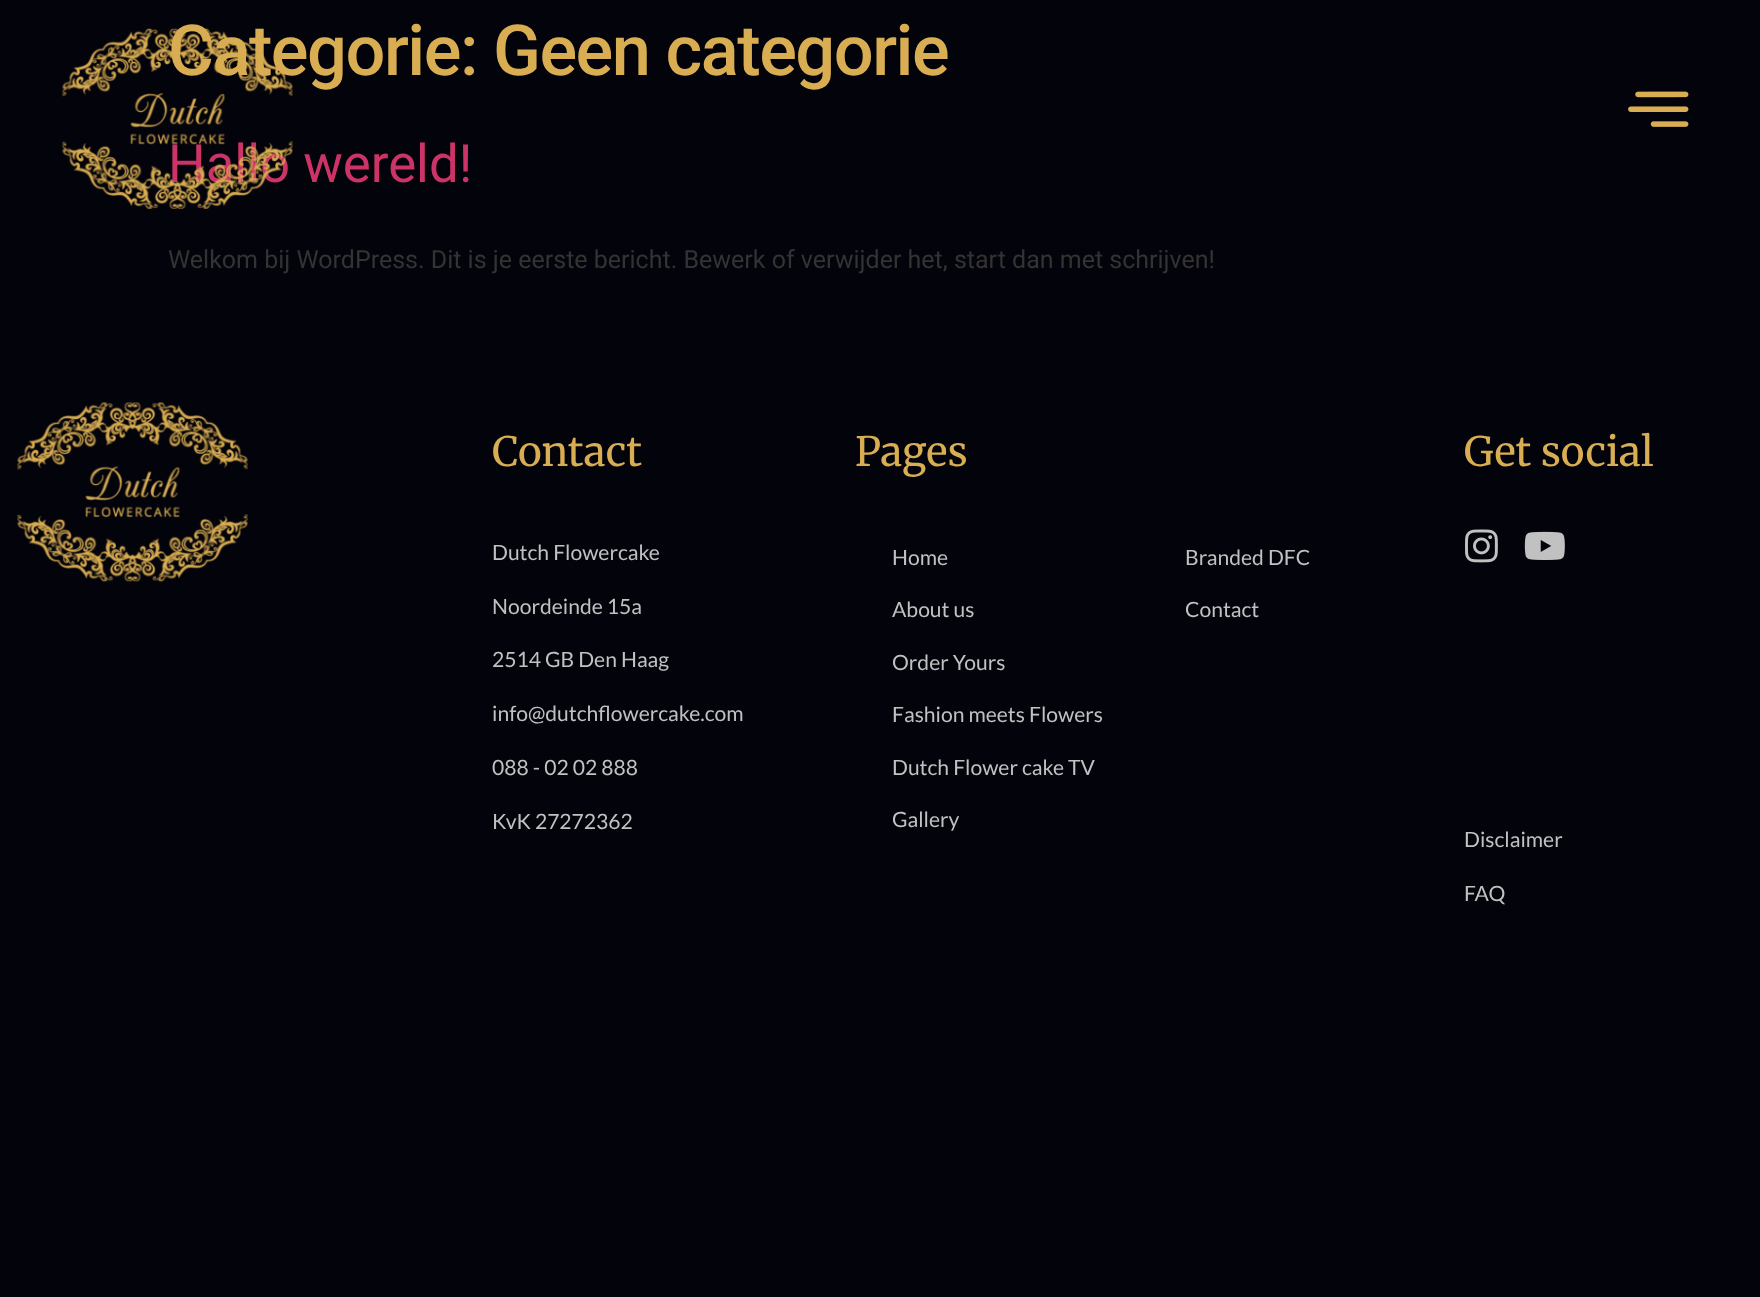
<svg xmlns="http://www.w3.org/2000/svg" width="1760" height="1297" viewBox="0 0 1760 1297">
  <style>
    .t1 { font: 500 70.4px Roboto; letter-spacing: -1.5px; fill: #d9ad52; }
    .t2 { font: 52.75px Roboto; fill: #c36; }
    .t3 { font: 25px Roboto; fill: #333; }
    .t4 { font: 40.5px Merriweather; fill: #d9ad52; }
    .t5 { font: 21.1px Lato; fill: #c1c1c1; }
  </style>
  <rect width="100%" height="100%" fill="#03030b"/>
  <text x="168" y="75" class="t1">Categorie: Geen categorie</text>
  <text x="168" y="182" class="t2">Hallo wereld!</text>
  <text x="168" y="268" class="t3">Welkom bij WordPress. Dit is je eerste bericht. Bewerk of verwijder het, start dan met schrijven!</text>
  <image x="62" y="28" width="231" height="181" href="images/1.png"/>
  <image x="1628" y="91" width="61" height="36" href="images/2.png"/>
  <image x="17" y="402" width="231" height="180" href="images/3.png"/>
  <text x="492" y="466" class="t4">Contact</text>
  <text x="492" y="560" class="t5">Dutch Flowercake</text>
  <text x="492" y="614" class="t5">Noordeinde 15a</text>
  <text x="492" y="667" class="t5">2514 GB Den Haag</text>
  <text x="492" y="721" class="t5">info@dutchflowercake.com</text>
  <text x="492" y="775" class="t5">088 - 02 02 888</text>
  <text x="492" y="829" class="t5">KvK 27272362</text>
  <text x="855" y="466" class="t4">Pages</text>
  <text x="892" y="565" class="t5">Home</text>
  <text x="892" y="617" class="t5">About us</text>
  <text x="892" y="670" class="t5">Order Yours</text>
  <text x="892" y="722" class="t5">Fashion meets Flowers</text>
  <text x="892" y="775" class="t5">Dutch Flower cake TV</text>
  <text x="892" y="827" class="t5">Gallery</text>
  <text x="1185" y="565" class="t5">Branded DFC</text>
  <text x="1185" y="617" class="t5">Contact</text>
  <text x="1464" y="466" class="t4">Get social</text>
  <image x="1465" y="529" width="33" height="34" href="images/4.png"/>
  <image x="1524" y="531" width="41" height="29" href="images/5.png"/>
  <text x="1464" y="847" class="t5">Disclaimer</text>
  <text x="1464" y="901" class="t5">FAQ</text>
</svg>
